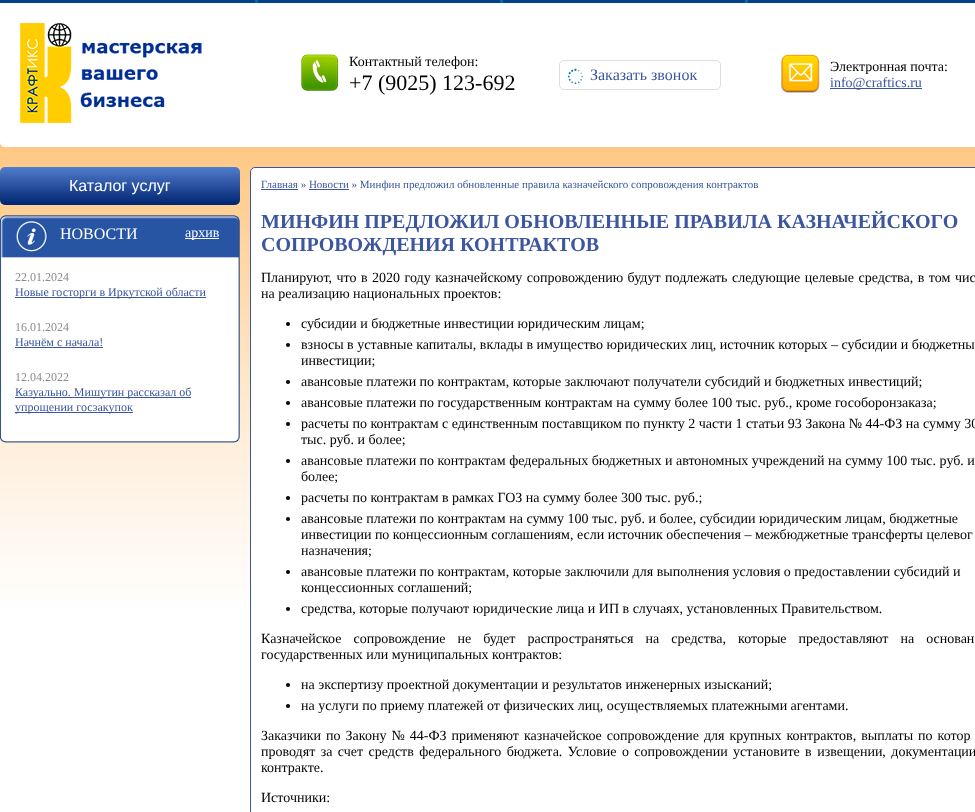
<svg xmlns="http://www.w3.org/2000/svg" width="975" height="812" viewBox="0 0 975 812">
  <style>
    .t1 { font: 14px Liberation Serif; fill: #000; }
    .t2 { font: 22px Liberation Serif; fill: #000; }
    .t3 { font: 16px Liberation Serif; fill: #3c569f; }
    .t4 { font: 14px Liberation Serif; fill: #3c569f; }
    .t5 { font: 16px Liberation Sans; fill: #fff; }
    .t6 { font: 16px Liberation Serif; fill: #fff; }
    .t7 { font: 14px Liberation Serif; fill: #fff; }
    .t8 { font: 12px Liberation Serif; fill: #8c8c8c; }
    .t9 { font: 12px Liberation Serif; fill: #3c569f; }
    .t10 { font: 11px Liberation Serif; fill: #3c569f; }
    .t11 { font: bold 20px Liberation Serif; fill: #3c569f; }
  </style>
  <defs>
    <linearGradient id="g1" gradientUnits="userSpaceOnUse" x1="120" y1="167" x2="120" y2="205"><stop offset="0" stop-color="#517dcd"/><stop offset="1" stop-color="#002470"/></linearGradient>
  </defs>
  <rect width="100%" height="100%" fill="#fff"/>
  <image x="0" y="142" width="975" height="458" href="images/1.png"/>
  <rect x="0" y="0" width="975" height="3" fill="#024288"/>
  <rect x="255" y="0" width="3" height="3" fill="#006ea5"/>
  <rect x="500" y="0" width="3" height="3" fill="#006ea5"/>
  <rect x="745" y="0" width="3" height="3" fill="#006ea5"/>
  <path d="M0 3H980V142C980 145 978 147 975 147H5C2 147 0 145 0 142Z" fill="#fff"/>
  <image x="20" y="23" width="182" height="100" href="images/2.png"/>
  <image x="301" y="54" width="38" height="37" href="images/3.png"/>
  <text x="349" y="66" class="t1">Контактный телефон:</text>
  <text x="349" y="90" class="t2">+7 (9025) 123-692</text>
  <rect x="559.5" y="60.5" width="161" height="29" rx="4.5" fill="none" stroke="#ddd"/>
  <image x="567" y="68" width="16" height="16" href="images/4.png"/>
  <text x="590" y="80" class="t3">Заказать звонок</text>
  <image x="781" y="54" width="39" height="39" href="images/5.png"/>
  <text x="830" y="71" class="t1">Электронная почта:</text>
  <rect x="830" y="88" width="92" height="1" fill="#3c569f"/>
  <text x="830" y="87" class="t4">info@craftics.ru</text>
  <rect x="0" y="167" width="240" height="38" rx="5" fill="url(#g1)"/>
  <text x="69" y="191" class="t5">Каталог услуг</text>
  <image x="0" y="215" width="240" height="45" href="images/6.png"/>
  <text x="60" y="239" class="t6">НОВОСТИ</text>
  <rect x="185" y="238" width="34" height="1" fill="#fff"/>
  <text x="185" y="237" class="t7">архив</text>
  <image x="0" y="260" width="240" height="175" href="images/7.png"/>
  <text x="15" y="281" class="t8">22.01.2024</text>
  <rect x="15" y="297" width="191" height="1" fill="#3c569f"/>
  <text x="15" y="296" class="t9">Новые госторги в Иркутской области</text>
  <text x="15" y="331" class="t8">16.01.2024</text>
  <text x="15" y="346" class="t9">Начнём с начала!</text>
  <rect x="15" y="347" width="88" height="1" fill="#3c569f"/>
  <text x="15" y="381" class="t8">12.04.2022</text>
  <rect x="15" y="397" width="176" height="1" fill="#3c569f"/>
  <text x="15" y="396" class="t9">Казуально. Мишутин рассказал об</text>
  <rect x="15" y="412" width="118" height="1" fill="#3c569f"/>
  <text x="15" y="411" class="t9">упрощении госзакупок</text>
  <image x="0" y="435" width="240" height="8" href="images/8.png"/>
  <rect x="250.5" y="167.5" width="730" height="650" rx="4.5" fill="#fff" stroke="#3c569f"/>
  <rect x="261" y="189" width="37" height="1" fill="#3c569f"/>
  <text x="261" y="188" class="t10">Главная » Новости » Минфин предложил обновленные правила казначейского сопровождения контрактов</text>
  <rect x="309" y="189" width="40" height="1" fill="#3c569f"/>
  <text x="261" y="228" class="t11">МИНФИН ПРЕДЛОЖИЛ ОБНОВЛЕННЫЕ ПРАВИЛА КАЗНАЧЕЙСКОГО</text>
  <text x="261" y="251" class="t11">СОПРОВОЖДЕНИЯ КОНТРАКТОВ</text>
  <text x="261" y="282" word-spacing="1" class="t1">Планируют, что в 2020 году казначейскому сопровождению будут подлежать следующие целевые средства, в том чис</text>
  <text x="261" y="298" class="t1">на реализацию национальных проектов:</text>
  <circle cx="288" cy="324" r="2" fill="#000"/>
  <text x="301" y="328" class="t1">субсидии и бюджетные инвестиции юридическим лицам;</text>
  <circle cx="288" cy="345" r="2" fill="#000"/>
  <text x="301" y="349" class="t1">взносы в уставные капиталы, вклады в имущество юридических лиц, источник которых – субсидии и бюджетны</text>
  <text x="301" y="365" class="t1">инвестиции;</text>
  <circle cx="288" cy="382" r="2" fill="#000"/>
  <text x="301" y="386" class="t1">авансовые платежи по контрактам, которые заключают получатели субсидий и бюджетных инвестиций;</text>
  <circle cx="288" cy="403" r="2" fill="#000"/>
  <text x="301" y="407" class="t1">авансовые платежи по государственным контрактам на сумму более 100 тыс. руб., кроме гособоронзаказа;</text>
  <circle cx="288" cy="424" r="2" fill="#000"/>
  <text x="301" y="428" class="t1">расчеты по контрактам с единственным поставщиком по пункту 2 части 1 статьи 93 Закона № 44-ФЗ на сумму 30</text>
  <text x="301" y="444" class="t1">тыс. руб. и более;</text>
  <circle cx="288" cy="461" r="2" fill="#000"/>
  <text x="301" y="465" class="t1">авансовые платежи по контрактам федеральных бюджетных и автономных учреждений на сумму 100 тыс. руб. и</text>
  <text x="301" y="481" class="t1">более;</text>
  <circle cx="288" cy="498" r="2" fill="#000"/>
  <text x="301" y="502" class="t1">расчеты по контрактам в рамках ГОЗ на сумму более 300 тыс. руб.;</text>
  <circle cx="288" cy="519" r="2" fill="#000"/>
  <text x="301" y="523" class="t1">авансовые платежи по контрактам на сумму 100 тыс. руб. и более, субсидии юридическим лицам, бюджетные</text>
  <text x="301" y="539" class="t1">инвестиции по концессионным соглашениям, если источник обеспечения – межбюджетные трансферты целевог</text>
  <text x="301" y="555" class="t1">назначения;</text>
  <circle cx="288" cy="572" r="2" fill="#000"/>
  <text x="301" y="576" class="t1">авансовые платежи по контрактам, которые заключили для выполнения условия о предоставлении субсидий и</text>
  <text x="301" y="592" class="t1">концессионных соглашений;</text>
  <circle cx="288" cy="609" r="2" fill="#000"/>
  <text x="301" y="613" class="t1">средства, которые получают юридические лица и ИП в случаях, установленных Правительством.</text>
  <text x="261" y="643" word-spacing="8.5" class="t1">Казначейское сопровождение не будет распространяться на средства, которые предоставляют на основан</text>
  <text x="261" y="659" class="t1">государственных или муниципальных контрактов:</text>
  <circle cx="288" cy="685" r="2" fill="#000"/>
  <text x="301" y="689" class="t1">на экспертизу проектной документации и результатов инженерных изысканий;</text>
  <circle cx="288" cy="706" r="2" fill="#000"/>
  <text x="301" y="710" class="t1">на услуги по приему платежей от физических лиц, осуществляемых платежными агентами.</text>
  <text x="261" y="740" word-spacing="1.5" class="t1">Заказчики по Закону № 44-ФЗ применяют казначейское сопровождение для крупных контрактов, выплаты по котор</text>
  <text x="261" y="756" word-spacing="1.9" class="t1">проводят за счет средств федерального бюджета. Условие о сопровождении установите в извещении, документации</text>
  <text x="261" y="772" class="t1">контракте.</text>
  <text x="261" y="802" class="t1">Источники:</text>
</svg>
